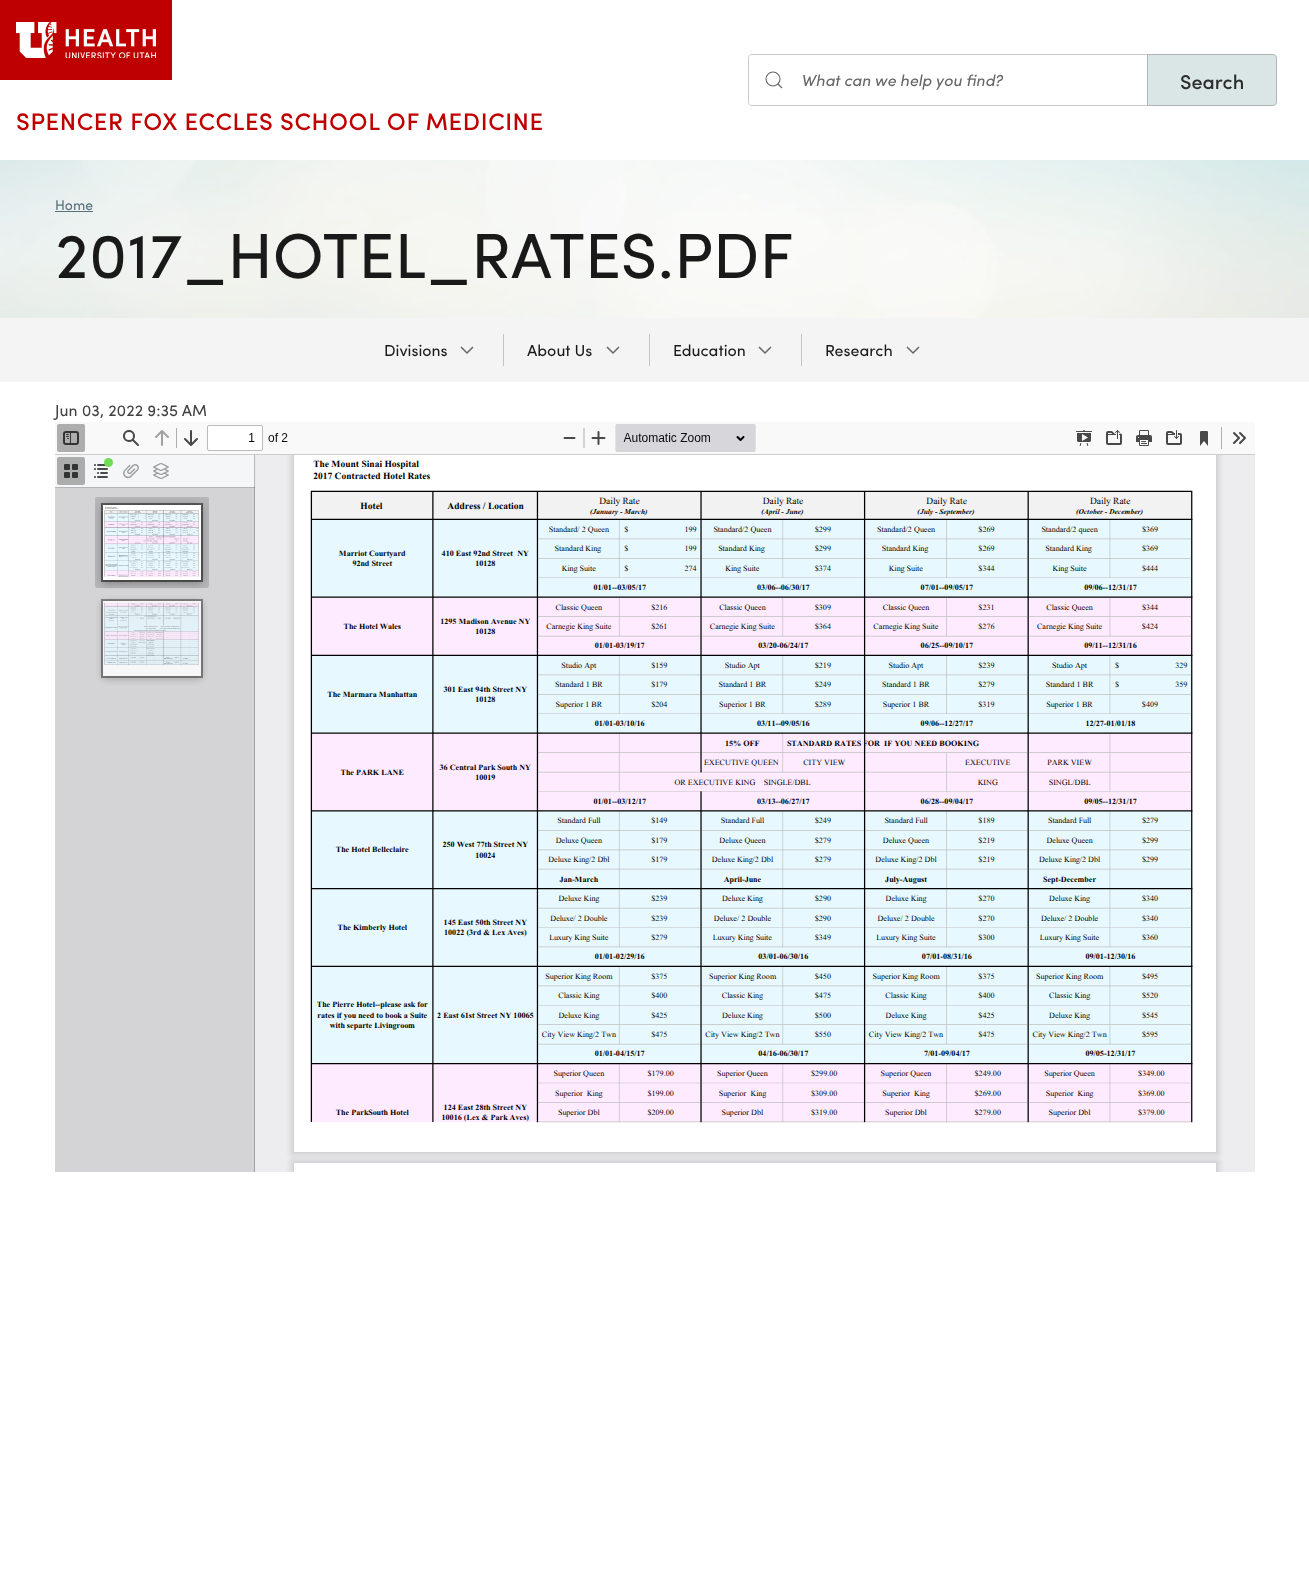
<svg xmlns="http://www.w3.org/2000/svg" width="1309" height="1570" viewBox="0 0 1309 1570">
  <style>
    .t1 { font: italic 16px Sofia; fill: #666; }
    .t2 { font: 500 20px Sofia; fill: #2c2e2e; }
    .t3 { font: 500 24px Sofia; letter-spacing: 0.6px; fill: #be0000; }
    .t4 { font: 14px Sofia; fill: #59737d; }
    .t5 { font: 64px Sofia; fill: #181918; }
    .t6 { font: 16px Sofia; fill: #181918; }
    .t7 { font: 16px Sofia; fill: #414042; }
  </style>
  <rect width="100%" height="100%" fill="#fff"/>
  <path d="M752 54.5H1147.5V105.5H752C750 105.5 748.5 104 748.5 102V58C748.5 56 750 54.5 752 54.5Z" fill="none" stroke="#ccc"/>
  <circle cx="773" cy="79" r="7" fill="none" stroke="#666" stroke-width="1.1"/>
  <path d="M778 84L782 88Z" fill="none" stroke="#00000099" stroke-width="1.1"/>
  <text x="801" y="86" class="t1">What can we help you find?</text>
  <path d="M1147 54H1273C1275 54 1277 56 1277 58V102C1277 104 1275 106 1273 106H1147Z" fill="#dae5e6"/>
  <path d="M1147.5 54.5H1273C1275 54.5 1276.5 56 1276.5 58V102C1276.5 104 1275 105.5 1273 105.5H1147.5Z" fill="none" stroke="#00000033"/>
  <text x="1180" y="89" class="t2">Search</text>
  <rect x="0" y="0" width="172" height="80" fill="#be0000"/>
  <image x="16" y="22" width="140" height="36" href="images/1.png"/>
  <text x="16" y="130" class="t3">SPENCER FOX ECCLES SCHOOL OF MEDICINE</text>
  <image x="0" y="160" width="1309" height="158" href="images/2.png"/>
  <text x="55" y="210" class="t4">Home</text>
  <rect x="55" y="211" width="38" height="1" fill="#59737d"/>
  <text x="55" y="278" class="t5">2017_HOTEL_RATES.PDF</text>
  <rect x="0" y="318" width="1309" height="64" fill="#f4f4f5"/>
  <text x="384" y="356" class="t6">Divisions</text>
  <path d="M461 347L467 353L473 347" fill="none" stroke="#666" stroke-width="1.5"/>
  <rect x="503" y="334" width="1" height="32" fill="#c3c3c4"/>
  <text x="527" y="356" class="t6">About Us</text>
  <path d="M607 347L613 353L619 347" fill="none" stroke="#666" stroke-width="1.5"/>
  <rect x="649" y="334" width="1" height="32" fill="#c3c3c4"/>
  <text x="673" y="356" class="t6">Education</text>
  <path d="M759 347L765 353L771 347" fill="none" stroke="#666" stroke-width="1.5"/>
  <rect x="801" y="334" width="1" height="32" fill="#c3c3c4"/>
  <text x="825" y="356" class="t6">Research</text>
  <path d="M907 347L913 353L919 347" fill="none" stroke="#666" stroke-width="1.5"/>
  <text x="55" y="416" class="t7">Jun 03, 2022 9:35 AM</text>
  <image x="55" y="422" width="1200" height="750" href="images/3.png"/>
</svg>
